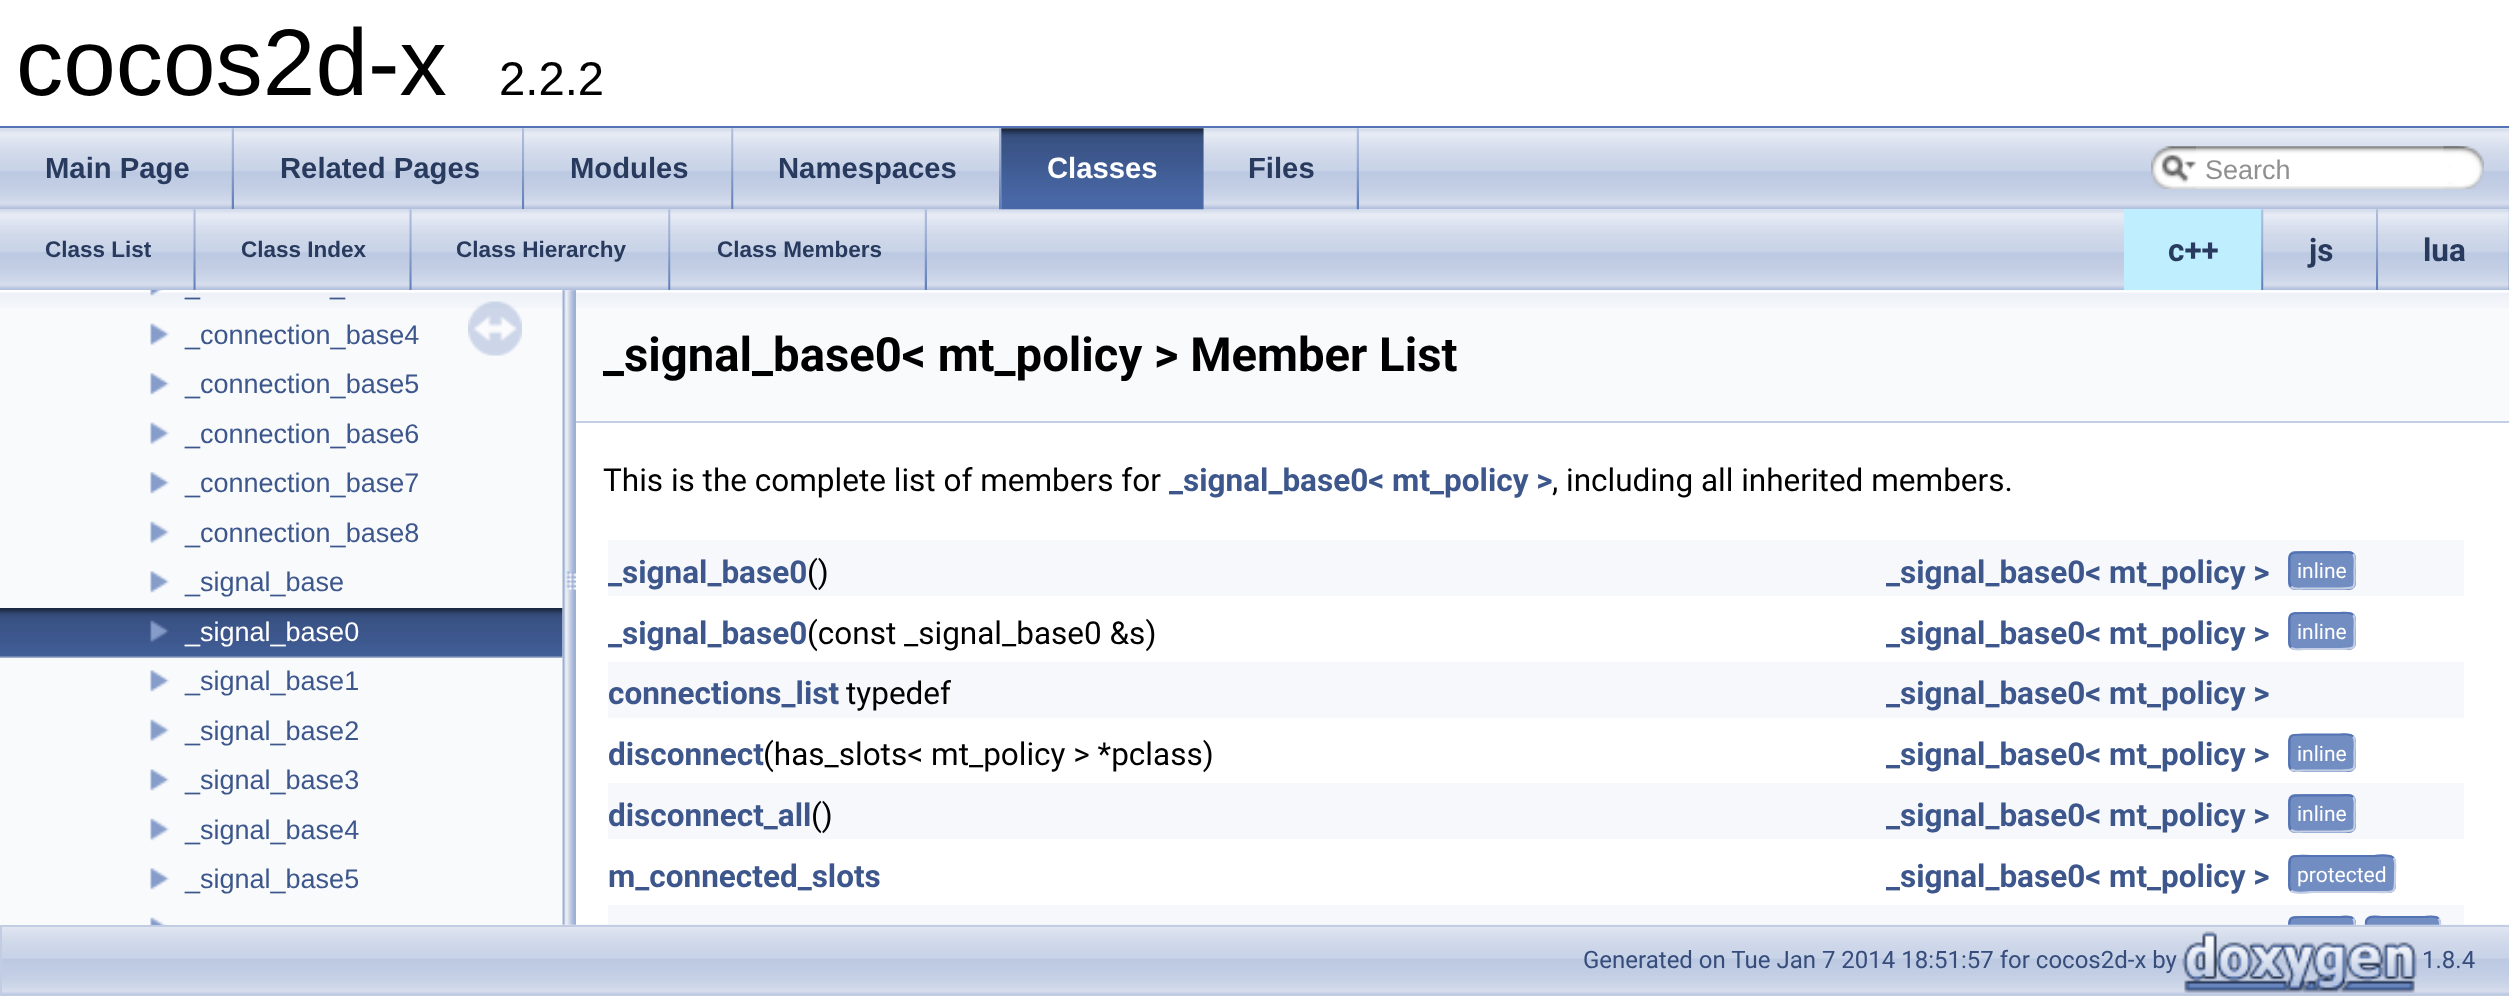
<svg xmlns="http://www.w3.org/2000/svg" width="2509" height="996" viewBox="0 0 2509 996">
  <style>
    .t1 { font: 94.5px Liberation Sans; fill: #000; }
    .t2 { font: 47.25px Liberation Sans; fill: #000; }
    .t3 { font: bold 29.25px Liberation Sans; fill: #283a5d; }
    .t4 { font: bold 29.25px Liberation Sans; fill: #fff; }
    .t5 { font: 27px Liberation Sans; fill: #909090; }
    .t6 { font: bold 22.5px Liberation Sans; fill: #283a5d; }
    .t7 { font: bold 31.5px Roboto; fill: #283a5d; }
    .t8 { font: 27px Liberation Sans; fill: #3d578c; }
    .t9 { font: 27px Liberation Sans; fill: #fff; }
    .t10 { font: bold 47.25px Roboto; fill: #000; }
    .t11 { font: 31.5px Roboto; fill: #000; }
    .t12 { font: bold 31.5px Roboto; fill: #3d578c; }
    .t13 { font: 21px Roboto; fill: #fff; }
    .t14 { font: 24px Roboto; fill: #364d7c; }
  </style>
  <rect width="100%" height="100%" fill="#fff"/>
  <rect x="0" y="126" width="2509" height="2" fill="#5373b4"/>
  <text x="16" y="95" class="t1">cocos2d-x</text>
  <text x="499" y="95" class="t2">2.2.2</text>
  <image x="0" y="128" width="2509" height="82" href="images/1.png"/>
  <image x="0" y="209" width="2509" height="82" href="images/16.png"/>
  <image x="0" y="128" width="234" height="82" href="images/2.png"/>
  <image x="231" y="128" width="3" height="82" href="images/3.png"/>
  <text x="45" y="178" class="t3">Main Page</text>
  <image x="234" y="128" width="290" height="82" href="images/4.png"/>
  <image x="522" y="128" width="3" height="82" href="images/5.png"/>
  <text x="280" y="178" class="t3">Related Pages</text>
  <image x="524" y="128" width="210" height="82" href="images/6.png"/>
  <image x="731" y="128" width="3" height="82" href="images/7.png"/>
  <text x="570" y="178" class="t3">Modules</text>
  <image x="733" y="128" width="268" height="82" href="images/8.png"/>
  <image x="999" y="128" width="3" height="82" href="images/5.png"/>
  <text x="778" y="178" class="t3">Namespaces</text>
  <image x="1001" y="128" width="203" height="82" href="images/9.png"/>
  <image x="1001" y="128" width="203" height="82" href="images/10.png"/>
  <text x="1047" y="178" class="t4">Classes</text>
  <image x="1203" y="128" width="156" height="82" href="images/11.png"/>
  <image x="1356" y="128" width="3" height="82" href="images/3.png"/>
  <text x="1248" y="178" class="t3">Files</text>
  <image x="2151" y="146" width="45" height="43" href="images/12.png"/>
  <image x="2161" y="154" width="35" height="29" href="images/13.png"/>
  <image x="2196" y="146" width="264" height="43" href="images/14.png"/>
  <text x="2205" y="179" class="t5">Search</text>
  <image x="2443" y="146" width="41" height="43" href="images/15.png"/>
  <image x="193" y="209" width="3" height="81" href="images/17.png"/>
  <text x="45" y="257" class="t6">Class List</text>
  <image x="195" y="209" width="217" height="81" href="images/18.png"/>
  <image x="409" y="209" width="3" height="81" href="images/19.png"/>
  <text x="241" y="257" class="t6">Class Index</text>
  <image x="411" y="209" width="260" height="82" href="images/20.png"/>
  <image x="668" y="209" width="3" height="81" href="images/21.png"/>
  <text x="456" y="257" class="t6">Class Hierarchy</text>
  <image x="670" y="209" width="257" height="81" href="images/22.png"/>
  <image x="924" y="209" width="3" height="81" href="images/23.png"/>
  <text x="717" y="257" class="t6">Class Members</text>
  <rect x="2124" y="209" width="140" height="81" fill="#bfefff"/>
  <image x="2261" y="209" width="3" height="81" href="images/24.png"/>
  <text x="2168" y="261" class="t7">c++</text>
  <image x="2263" y="209" width="115" height="81" href="images/25.png"/>
  <image x="2376" y="209" width="3" height="81" href="images/26.png"/>
  <text x="2309" y="261" class="t7">js</text>
  <image x="2378" y="209" width="131" height="81" href="images/27.png"/>
  <image x="2508" y="209" width="1" height="81" href="images/28.png"/>
  <text x="2423" y="261" class="t7">lua</text>
  <rect x="608" y="905" width="1856" height="20" fill="#f7f8fb"/>
  <path d="M2295 916H2349C2353 916 2356 919 2356 923V925H2288V923C2288 919 2291 916 2295 916Z" fill="#728dc1"/>
  <path d="M2353 918.5C2356 921.5 2354.5 931 2354.5 935C2354.5 952.5 2357.5 953 2340 953H2304C2301 953 2294 954.5 2291 951" fill="none" stroke="#c4cfe5" stroke-width="2.2"/>
  <path d="M2291 951C2288 948 2289.5 938.5 2289.5 935C2289.5 917.5 2286.5 917 2304 917H2340C2343 917 2350 915.5 2353 918.5" fill="none" stroke="#5373b4" stroke-width="2.2"/>
  <path d="M2372 916H2434C2438 916 2441 919 2441 923V925H2365V923C2365 919 2368 916 2372 916Z" fill="#728dc1"/>
  <path d="M2438.5 918.5C2441.5 921.5 2440 931 2440 935V948.5C2438.5 955 2428 953 2424 953H2382C2379.5 953 2371 954.5 2367.5 951" fill="none" stroke="#c4cfe5" stroke-width="2.2"/>
  <path d="M2367.5 951C2364.5 948 2366 938.5 2366 935V921.5C2367.5 914.5 2378 917 2382 917H2424C2426.5 917 2435 915 2438.5 918.5" fill="none" stroke="#5373b4" stroke-width="2.2"/>
  <image x="2" y="924" width="2507" height="71" href="images/42.png"/>
  <rect x="0" y="290" width="563" height="635" fill="#f9fafc"/>
  <image x="0" y="290" width="563" height="18" href="images/29.png"/>
  <image x="150" y="290" width="13" height="6" href="images/30.png"/>
  <text x="185" y="294" class="t8">_</text>
  <text x="330" y="294" class="t8">_</text>
  <image x="150" y="323" width="20" height="23" href="images/31.png"/>
  <text x="185" y="344" class="t8">_connection_base4</text>
  <image x="150" y="373" width="20" height="22" href="images/32.png"/>
  <text x="185" y="393" class="t8">_connection_base5</text>
  <image x="150" y="422" width="20" height="23" href="images/31.png"/>
  <text x="185" y="443" class="t8">_connection_base6</text>
  <image x="150" y="472" width="20" height="22" href="images/32.png"/>
  <text x="185" y="492" class="t8">_connection_base7</text>
  <image x="150" y="521" width="20" height="23" href="images/33.png"/>
  <text x="185" y="542" class="t8">_connection_base8</text>
  <image x="150" y="571" width="20" height="22" href="images/32.png"/>
  <text x="185" y="591" class="t8">_signal_base</text>
  <image x="0" y="608" width="563" height="50" href="images/34.png"/>
  <image x="150" y="620" width="19" height="23" href="images/35.png"/>
  <text x="185" y="641" class="t9">_signal_base0</text>
  <image x="150" y="670" width="20" height="22" href="images/32.png"/>
  <text x="185" y="690" class="t8">_signal_base1</text>
  <image x="150" y="719" width="20" height="23" href="images/31.png"/>
  <text x="185" y="740" class="t8">_signal_base2</text>
  <image x="150" y="769" width="20" height="22" href="images/36.png"/>
  <text x="185" y="789" class="t8">_signal_base3</text>
  <image x="150" y="818" width="20" height="23" href="images/37.png"/>
  <text x="185" y="839" class="t8">_signal_base4</text>
  <image x="150" y="868" width="20" height="22" href="images/32.png"/>
  <text x="185" y="888" class="t8">_signal_base5</text>
  <image x="150" y="917" width="16" height="8" href="images/38.png"/>
  <image x="468" y="301" width="54" height="55" href="images/39.png"/>
  <image x="562" y="290" width="14" height="635" href="images/40.png"/>
  <rect x="576" y="290" width="1933" height="131" fill="#f9fafc"/>
  <image x="576" y="291" width="1933" height="17" href="images/41.png"/>
  <rect x="576" y="421" width="1933" height="2" fill="#c4cfe5"/>
  <text x="603" y="371" class="t10">_signal_base0&lt; mt_policy &gt; Member List</text>
  <text x="603" y="491" class="t11">This is the complete list of members for</text>
  <text x="1169" y="491" class="t12">_signal_base0&lt; mt_policy &gt;</text>
  <text x="1552" y="491" class="t11">, including all inherited members.</text>
  <rect x="608" y="540" width="1856" height="56" fill="#f7f8fb"/>
  <text x="608" y="583" class="t12">_signal_base0</text>
  <text x="807" y="583" class="t11">()</text>
  <text x="1886" y="583" class="t12">_signal_base0&lt; mt_policy &gt;</text>
  <rect x="2288" y="551" width="68" height="39" rx="7" fill="#728dc1"/>
  <path d="M2353 554C2356 557 2354.5 566.5 2354.5 570.5C2354.5 588 2357.5 588.5 2340 588.5H2304C2301 588.5 2294 590 2291 586.5" fill="none" stroke="#c4cfe5" stroke-width="2.2"/>
  <path d="M2291 586.5C2288 583.5 2289.5 574 2289.5 570.5C2289.5 553 2286.5 552.5 2304 552.5H2340C2343 552.5 2350 551 2353 554" fill="none" stroke="#5373b4" stroke-width="2.2"/>
  <text x="2297" y="578" class="t13">inline</text>
  <text x="608" y="644" class="t12">_signal_base0</text>
  <text x="807" y="644" class="t11">(const _signal_base0 &amp;s)</text>
  <text x="1886" y="644" class="t12">_signal_base0&lt; mt_policy &gt;</text>
  <rect x="2288" y="612" width="68" height="38" rx="7" fill="#728dc1"/>
  <path d="M2353 615C2356 618 2354.5 627.5 2354.5 631C2354.5 648.5 2357.5 649 2340 649H2304C2301 649 2294 650.5 2291 647.5" fill="none" stroke="#c4cfe5" stroke-width="2.2"/>
  <path d="M2291 647.5C2288 644.5 2289.5 635 2289.5 631C2289.5 613.5 2286.5 613 2304 613H2340C2343 613 2350 611.5 2353 615" fill="none" stroke="#5373b4" stroke-width="2.2"/>
  <text x="2297" y="639" class="t13">inline</text>
  <rect x="608" y="662" width="1856" height="56" fill="#f7f8fb"/>
  <text x="608" y="704" class="t12">connections_list</text>
  <text x="846" y="704" class="t11">typedef</text>
  <text x="1886" y="704" class="t12">_signal_base0&lt; mt_policy &gt;</text>
  <text x="608" y="765" class="t12">disconnect</text>
  <text x="763" y="765" class="t11">(has_slots&lt; mt_policy &gt; *pclass)</text>
  <text x="1886" y="765" class="t12">_signal_base0&lt; mt_policy &gt;</text>
  <rect x="2288" y="734" width="68" height="38" rx="7" fill="#728dc1"/>
  <path d="M2353 736.5C2356 739.5 2354.5 749 2354.5 752.5C2354.5 770 2357.5 770.5 2340 770.5H2304C2301 770.5 2294 772 2291 769" fill="none" stroke="#c4cfe5" stroke-width="2.2"/>
  <path d="M2291 769C2288 766 2289.5 756.5 2289.5 752.5C2289.5 735 2286.5 734.5 2304 734.5H2340C2343 734.5 2350 733 2353 736.5" fill="none" stroke="#5373b4" stroke-width="2.2"/>
  <text x="2297" y="761" class="t13">inline</text>
  <rect x="608" y="783" width="1856" height="56" fill="#f7f8fb"/>
  <text x="608" y="826" class="t12">disconnect_all</text>
  <text x="811" y="826" class="t11">()</text>
  <text x="1886" y="826" class="t12">_signal_base0&lt; mt_policy &gt;</text>
  <rect x="2288" y="794" width="68" height="39" rx="7" fill="#728dc1"/>
  <path d="M2353 797C2356 800 2354.5 809.5 2354.5 813.5C2354.5 831 2357.5 831.5 2340 831.5H2304C2301 831.5 2294 833 2291 829.5" fill="none" stroke="#c4cfe5" stroke-width="2.2"/>
  <path d="M2291 829.5C2288 826.5 2289.5 817 2289.5 813.5C2289.5 796 2286.5 795.5 2304 795.5H2340C2343 795.5 2350 794 2353 797" fill="none" stroke="#5373b4" stroke-width="2.2"/>
  <text x="2297" y="821" class="t13">inline</text>
  <text x="608" y="887" class="t12">m_connected_slots</text>
  <text x="1886" y="887" class="t12">_signal_base0&lt; mt_policy &gt;</text>
  <rect x="2288" y="855" width="108" height="38" rx="7" fill="#728dc1"/>
  <path d="M2393.5 858C2396.5 861 2395 870.5 2395 874C2395 895 2396.5 892 2374 892H2311C2310.5 892 2295 894.5 2291 890.5" fill="none" stroke="#c4cfe5" stroke-width="2.2"/>
  <path d="M2291 890.5C2288 887.5 2289.5 878 2289.5 874C2289.5 853 2288 856 2311 856H2374C2374 856 2389.5 853.5 2393.5 858" fill="none" stroke="#5373b4" stroke-width="2.2"/>
  <text x="2297" y="882" class="t13">protected</text>
  <rect x="1" y="926" width="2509" height="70" fill="none" stroke="#c2cde4" stroke-width="2"/>
  <text x="1583" y="968" class="t14">Generated on Tue Jan 7 2014 18:51:57 for cocos2d-x by</text>
  <image x="2182" y="931" width="235" height="62" href="images/43.png"/>
  <text x="2422" y="968" class="t14">1.8.4</text>
</svg>
